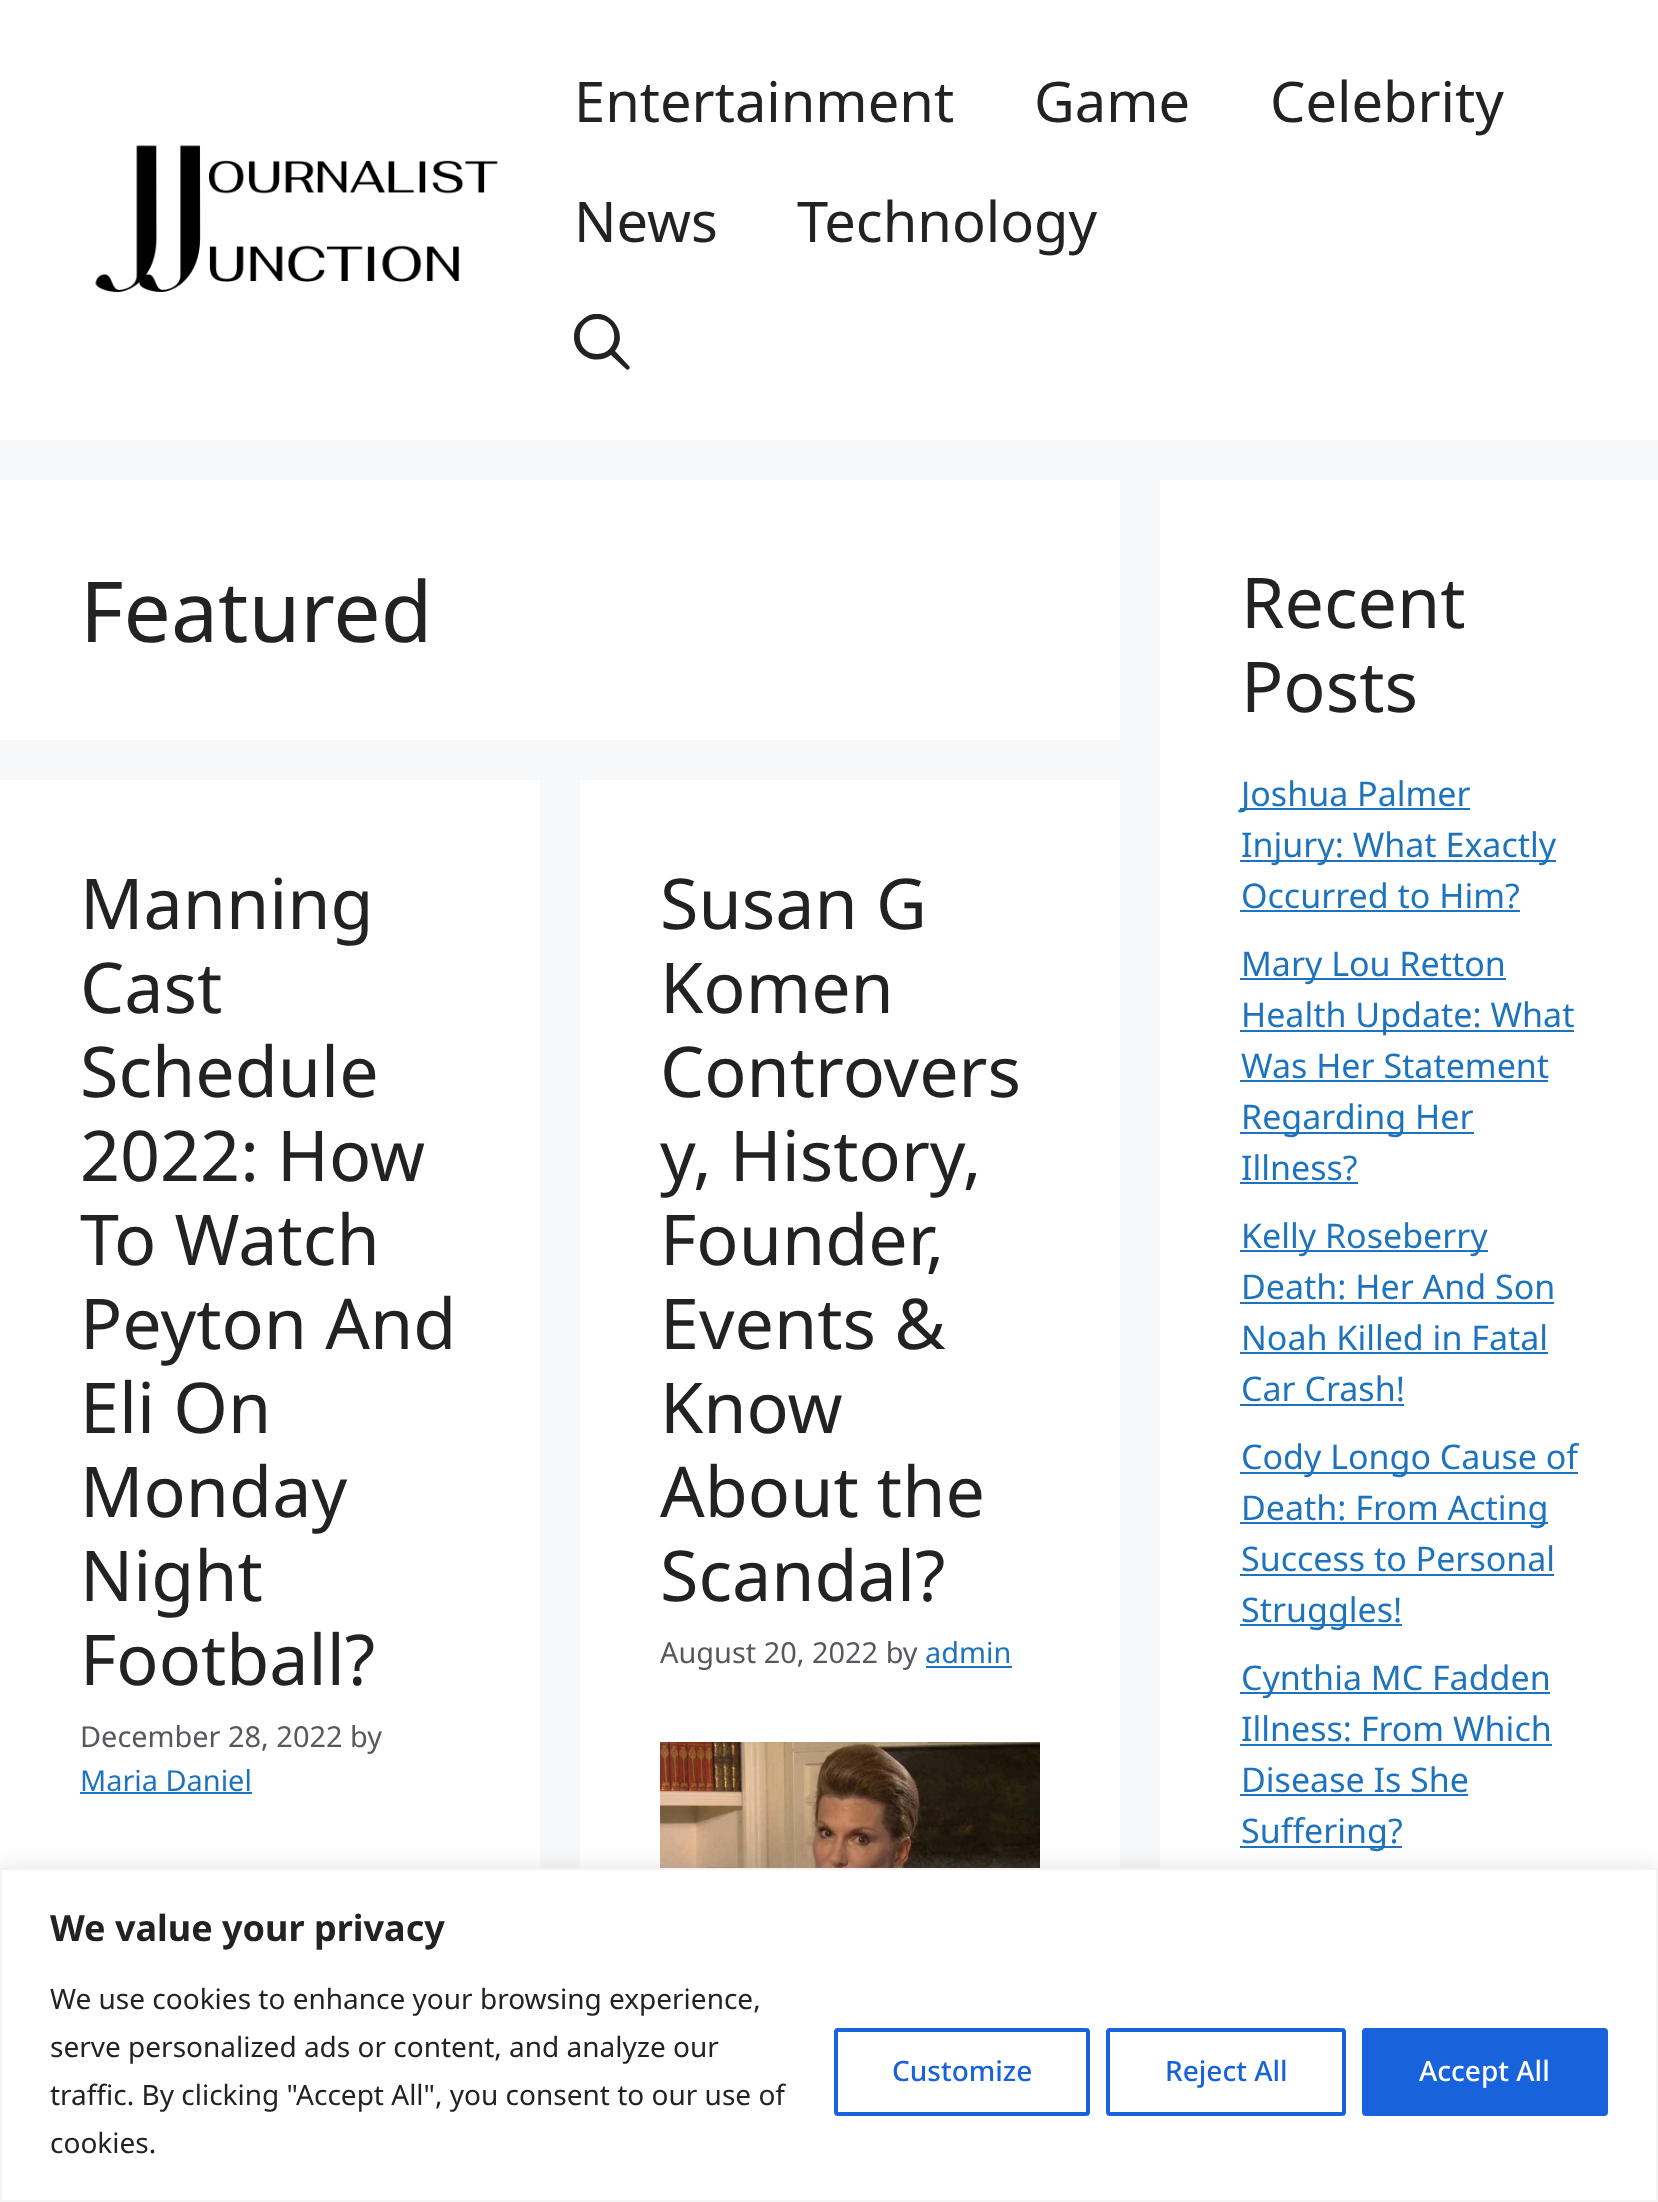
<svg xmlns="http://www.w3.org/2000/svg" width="1658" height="2202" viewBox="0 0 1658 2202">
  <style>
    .t1 { font: 56px Noto Sans; fill: #222; }
    .t2 { font: 84px Noto Sans; fill: #222; }
    .t3 { font: 70px Noto Sans; fill: #222; }
    .t4 { font: 28.9px Noto Sans; fill: #575760; }
    .t5 { font: 28.9px Noto Sans; fill: #1e73be; }
    .t6 { font: 34px Noto Sans; fill: #1e73be; }
    .t7 { font: bold 36px Noto Sans; fill: #222; }
    .t8 { font: 28px Noto Sans; fill: #222; }
    .t9 { font: 500 28px Noto Sans; fill: #1863dc; }
    .t10 { font: 500 28px Noto Sans; fill: #fff; }
  </style>
  <defs>
    <clipPath id="clip1"><rect x="574" y="314" width="56" height="56"/></clipPath>
  </defs>
  <rect width="100%" height="100%" fill="#f7f8f9"/>
  <rect x="0" y="0" width="1658" height="440" fill="#fff"/>
  <image x="95" y="145" width="403" height="148" href="images/1.png"/>
  <text x="574" y="122" class="t1">Entertainment</text>
  <text x="1034" y="122" class="t1">Game</text>
  <text x="1270" y="122" class="t1">Celebrity</text>
  <text x="574" y="242" class="t1">News</text>
  <text x="797" y="242" class="t1">Technology</text>
  <g clip-path="url(#clip1)">
    <path d="M597 319C574 319 574 354 597 354C620 354 620 319 597 319ZM574 337C574 331 576 325 581 321C601 300 632 329 615 351L629 366C630 367 630 368 629 369C628 370 627 370 626 369L611 355C596 366 574 356 574 337Z" fill="#222" fill-rule="evenodd"/>
  </g>
  <rect x="0" y="480" width="1120" height="260" fill="#fff"/>
  <text x="80" y="642" class="t2">Featured</text>
  <rect x="0" y="780" width="540" height="1088" fill="#fff"/>
  <text x="80" y="929" class="t3">Manning</text>
  <text x="80" y="1013" class="t3">Cast</text>
  <text x="80" y="1097" class="t3">Schedule</text>
  <text x="80" y="1181" class="t3">2022: How</text>
  <text x="80" y="1265" class="t3">To Watch</text>
  <text x="80" y="1349" class="t3">Peyton And</text>
  <text x="80" y="1433" class="t3">Eli On</text>
  <text x="80" y="1517" class="t3">Monday</text>
  <text x="80" y="1601" class="t3">Night</text>
  <text x="80" y="1685" class="t3">Football?</text>
  <text x="80" y="1747" class="t4">December 28, 2022 by</text>
  <text x="80" y="1791" class="t5">Maria Daniel</text>
  <rect x="80" y="1792" width="172" height="2" fill="#1e73be"/>
  <rect x="580" y="780" width="540" height="1088" fill="#fff"/>
  <text x="660" y="929" class="t3">Susan G</text>
  <text x="660" y="1013" class="t3">Komen</text>
  <text x="660" y="1097" class="t3">Controvers</text>
  <text x="660" y="1181" class="t3">y, History,</text>
  <text x="660" y="1265" class="t3">Founder,</text>
  <text x="660" y="1349" class="t3">Events &amp;</text>
  <text x="660" y="1433" class="t3">Know</text>
  <text x="660" y="1517" class="t3">About the</text>
  <text x="660" y="1601" class="t3">Scandal?</text>
  <text x="660" y="1663" class="t4">August 20, 2022 by</text>
  <text x="925" y="1663" class="t5">admin</text>
  <rect x="926" y="1666" width="86" height="2" fill="#1e73be"/>
  <image x="660" y="1742" width="380" height="126" href="images/2.png"/>
  <rect x="1160" y="480" width="498" height="1388" fill="#fff"/>
  <text x="1241" y="628" class="t3">Recent</text>
  <text x="1241" y="712" class="t3">Posts</text>
  <rect x="1240" y="808" width="230" height="2" fill="#1e73be"/>
  <text x="1241" y="806" class="t6">Joshua Palmer</text>
  <rect x="1240" y="860" width="316" height="2" fill="#1e73be"/>
  <text x="1241" y="857" class="t6">Injury: What Exactly</text>
  <text x="1241" y="908" class="t6">Occurred to Him?</text>
  <rect x="1240" y="910" width="280" height="2" fill="#1e73be"/>
  <rect x="1240" y="978" width="266" height="2" fill="#1e73be"/>
  <text x="1241" y="976" class="t6">Mary Lou Retton</text>
  <rect x="1240" y="1030" width="334" height="2" fill="#1e73be"/>
  <text x="1241" y="1027" class="t6">Health Update: What</text>
  <text x="1241" y="1078" class="t6">Was Her Statement</text>
  <rect x="1240" y="1080" width="308" height="2" fill="#1e73be"/>
  <rect x="1240" y="1132" width="234" height="2" fill="#1e73be"/>
  <text x="1241" y="1129" class="t6">Regarding Her</text>
  <text x="1241" y="1180" class="t6">Illness?</text>
  <rect x="1240" y="1182" width="118" height="2" fill="#1e73be"/>
  <rect x="1240" y="1250" width="248" height="2" fill="#1e73be"/>
  <text x="1241" y="1248" class="t6">Kelly Roseberry</text>
  <text x="1241" y="1299" class="t6">Death: Her And Son</text>
  <rect x="1240" y="1302" width="314" height="2" fill="#1e73be"/>
  <text x="1241" y="1350" class="t6">Noah Killed in Fatal</text>
  <rect x="1240" y="1352" width="308" height="2" fill="#1e73be"/>
  <text x="1241" y="1401" class="t6">Car Crash!</text>
  <rect x="1240" y="1404" width="164" height="2" fill="#1e73be"/>
  <rect x="1240" y="1472" width="338" height="2" fill="#1e73be"/>
  <text x="1241" y="1469" class="t6">Cody Longo Cause of</text>
  <rect x="1240" y="1522" width="308" height="2" fill="#1e73be"/>
  <text x="1241" y="1520" class="t6">Death: From Acting</text>
  <text x="1241" y="1571" class="t6">Success to Personal</text>
  <rect x="1240" y="1574" width="314" height="2" fill="#1e73be"/>
  <rect x="1240" y="1624" width="162" height="2" fill="#1e73be"/>
  <text x="1241" y="1622" class="t6">Struggles!</text>
  <rect x="1240" y="1692" width="310" height="2" fill="#1e73be"/>
  <text x="1241" y="1690" class="t6">Cynthia MC Fadden</text>
  <text x="1241" y="1741" class="t6">Illness: From Which</text>
  <rect x="1240" y="1744" width="312" height="2" fill="#1e73be"/>
  <text x="1241" y="1792" class="t6">Disease Is She</text>
  <rect x="1240" y="1794" width="228" height="2" fill="#1e73be"/>
  <rect x="1240" y="1846" width="162" height="2" fill="#1e73be"/>
  <text x="1241" y="1843" class="t6">Suffering?</text>
  <rect x="0" y="1866" width="1658" height="334" fill="#acabab4d" filter="blur(10px)"/>
  <rect x="1" y="1869" width="1656" height="332" fill="#fff" stroke="#f4f4f4" stroke-width="2"/>
  <text x="50" y="1941" class="t7">We value your privacy</text>
  <text x="50" y="2009" class="t8">We use cookies to enhance your browsing experience,</text>
  <text x="50" y="2057" class="t8">serve personalized ads or content, and analyze our</text>
  <text x="50" y="2105" class="t8">traffic. By clicking "Accept All", you consent to our use of</text>
  <text x="50" y="2153" class="t8">cookies.</text>
  <rect x="836" y="2030" width="252" height="84" rx="2" fill="none" stroke="#1863dc" stroke-width="4"/>
  <text x="892" y="2081" class="t9">Customize</text>
  <rect x="1108" y="2030" width="236" height="84" rx="2" fill="none" stroke="#1863dc" stroke-width="4"/>
  <text x="1165" y="2081" class="t9">Reject All</text>
  <rect x="1364" y="2030" width="242" height="84" rx="2" fill="#1863dc" stroke="#1863dc" stroke-width="4"/>
  <text x="1419" y="2081" class="t10">Accept All</text>
</svg>
